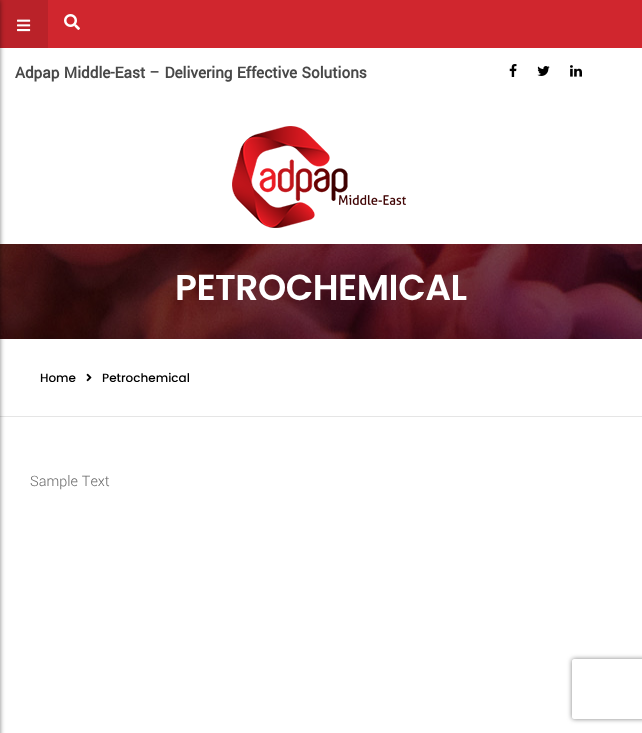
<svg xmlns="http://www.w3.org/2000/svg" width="642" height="733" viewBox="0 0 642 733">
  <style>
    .t1 { font: bold 17px Yantramanav; fill: #484848; }
    .t2 { font: 600 36px Poppins; letter-spacing: -0.5px; fill: #fff; }
    .t3 { font: 500 12px Poppins; fill: #000; }
    .t4 { font: 300 16px Yantramanav; fill: #666; }
  </style>
  <defs>
    <clipPath id="clip1"><path d="M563 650H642V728H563ZM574 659H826C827 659 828 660 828 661V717C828 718 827 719 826 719H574C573 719 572 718 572 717V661C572 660 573 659 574 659Z" clip-rule="evenodd"/></clipPath>
  </defs>
  <rect width="100%" height="100%" fill="#fff"/>
  <rect x="48" y="0" width="594" height="48" fill="#d0262e"/>
  <rect x="0" y="0" width="48" height="48" fill="#ba2229"/>
  <image x="17" y="19" width="14" height="13" href="images/1.png"/>
  <image x="64" y="14" width="16" height="16" href="images/2.png"/>
  <image x="0" y="244" width="642" height="95" href="images/7.png"/>
  <rect x="0" y="416" width="642" height="1" fill="#e5e5e5"/>
  <rect x="-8" y="0" width="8" height="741" fill="#00000080" filter="blur(2.5px)"/>
  <text x="15" y="78" class="t1">Adpap Middle-East – Delivering Effective Solutions</text>
  <image x="509" y="64" width="8" height="13" href="images/3.png"/>
  <image x="537" y="66" width="13" height="10" href="images/4.png"/>
  <image x="570" y="65" width="12" height="12" href="images/5.png"/>
  <image x="232" y="126" width="174" height="102" href="images/6.png"/>
  <text x="175" y="300" class="t2">PETROCHEMICAL</text>
  <text x="40" y="382" class="t3">Home</text>
  <image x="86" y="373" width="6" height="9" href="images/8.png"/>
  <text x="102" y="382" class="t3">Petrochemical</text>
  <text x="30" y="486" class="t4">Sample Text</text>
  <g clip-path="url(#clip1)">
    <rect x="572" y="659" width="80" height="60" rx="2" fill="#808080" filter="blur(2.5px)"/>
  </g>
</svg>
